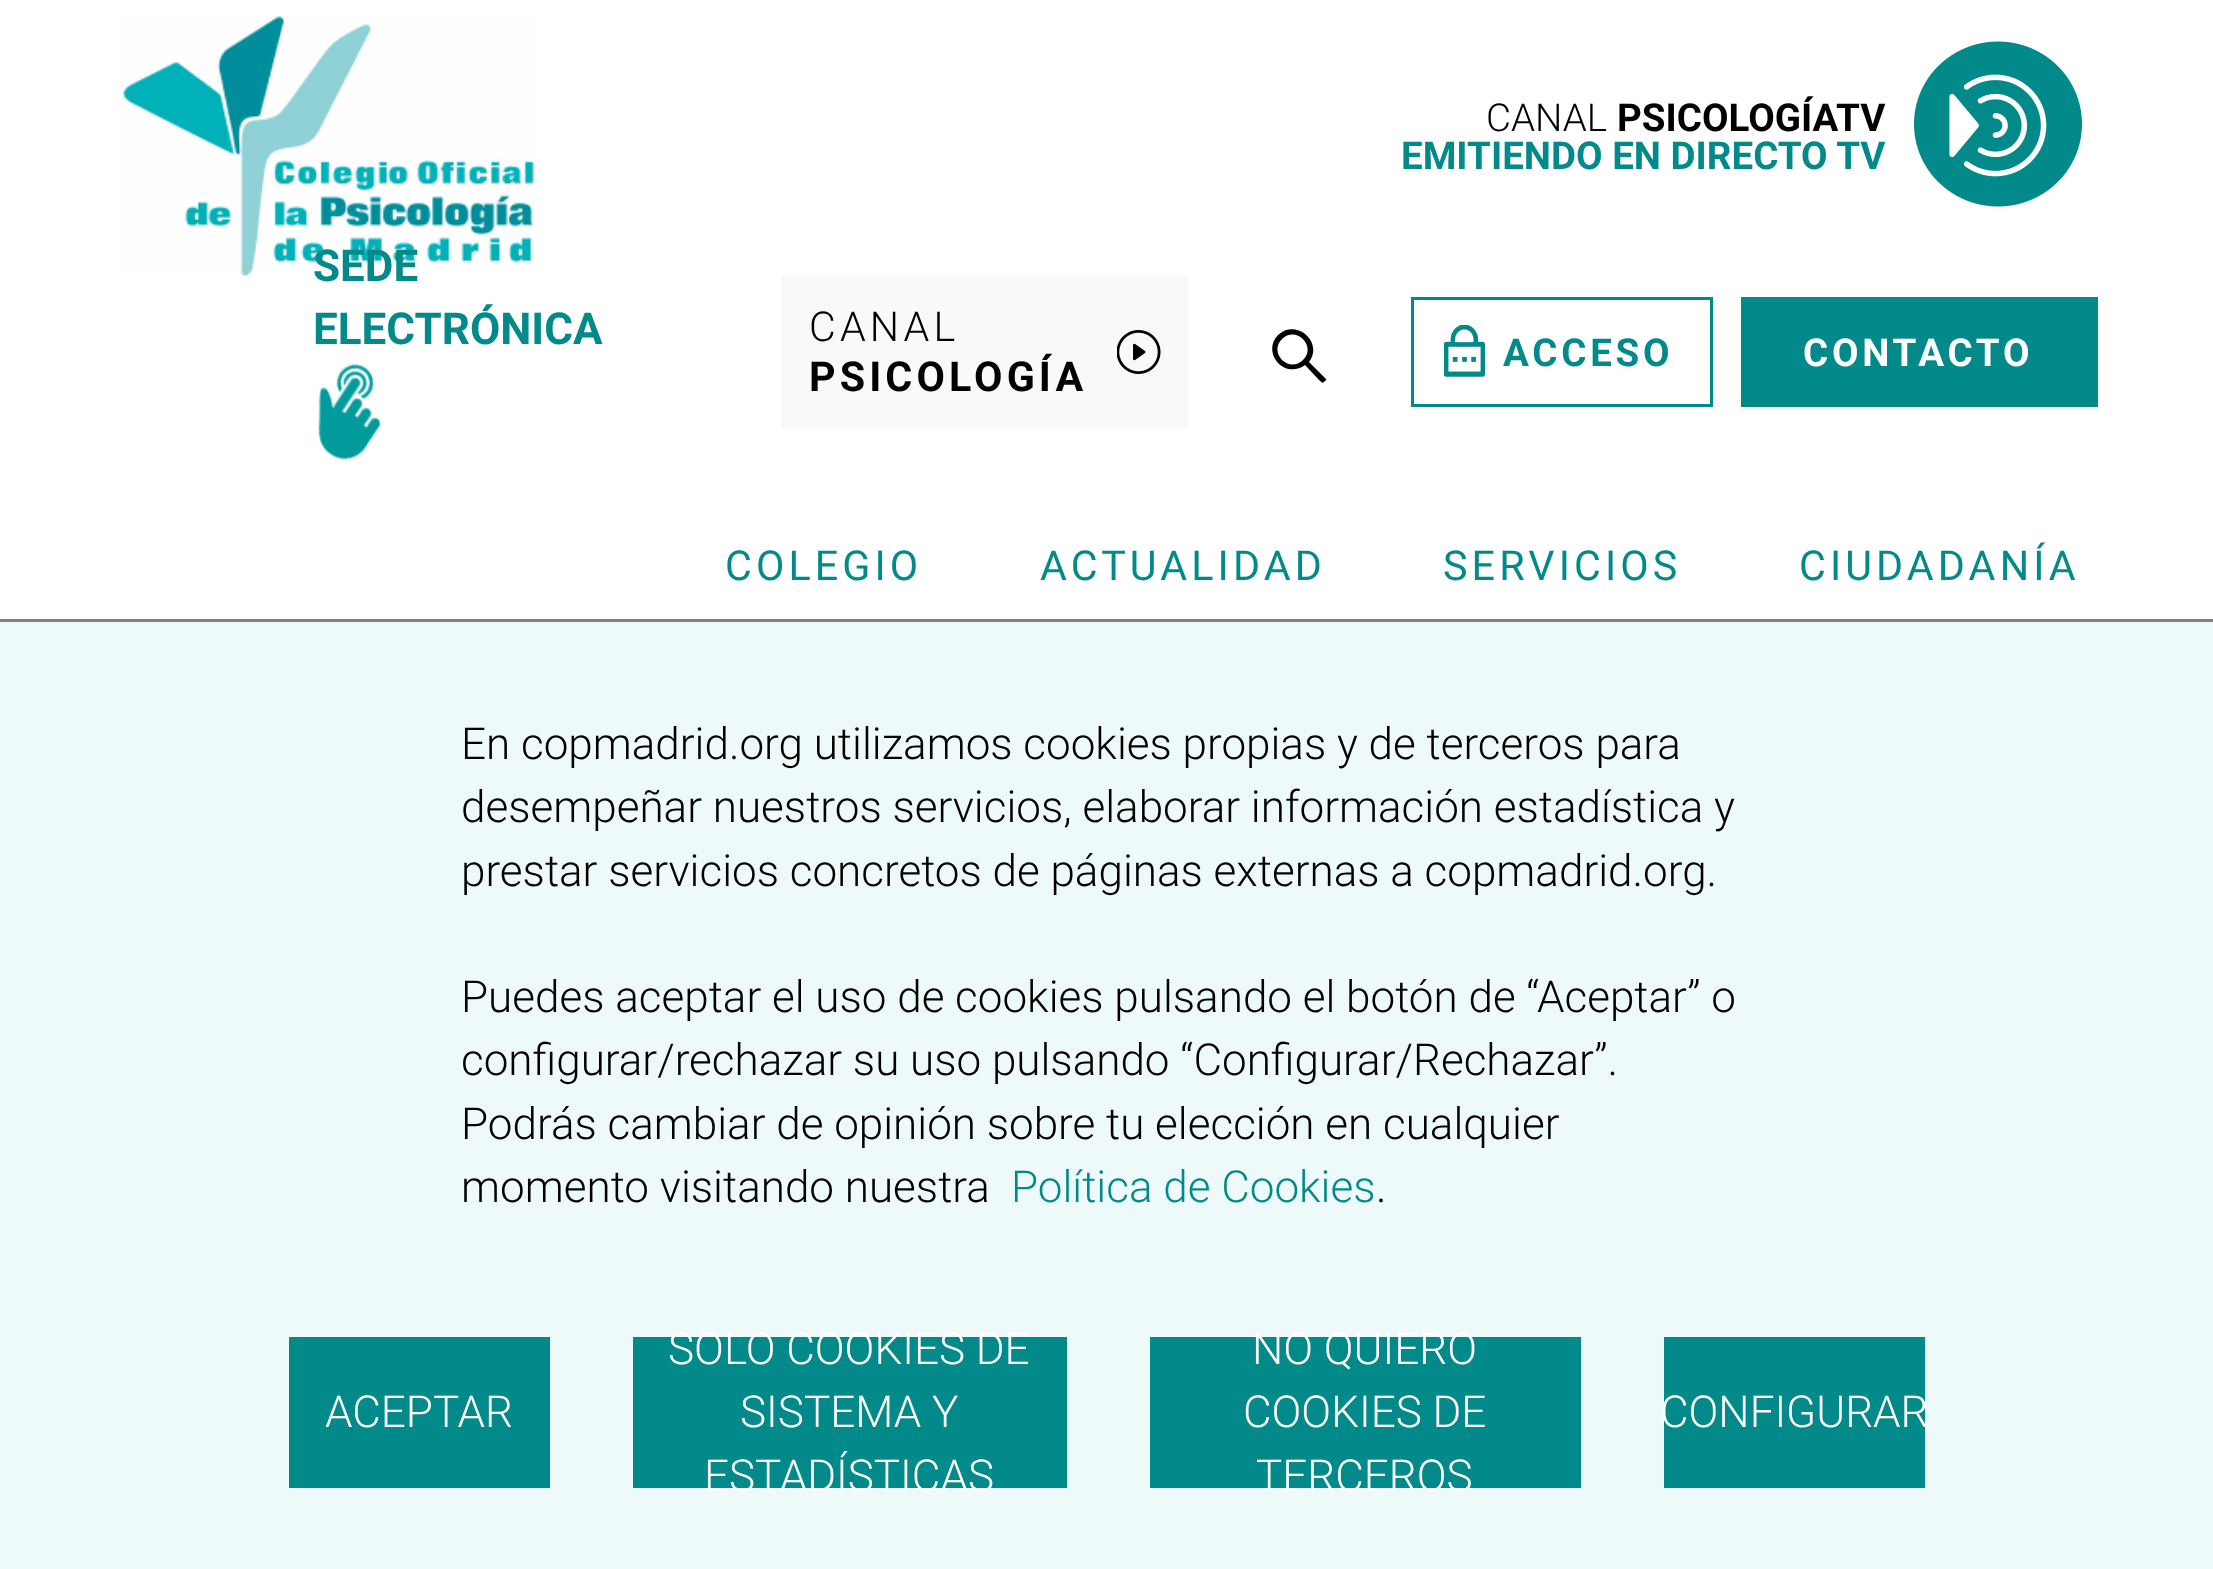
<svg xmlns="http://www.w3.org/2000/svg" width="2213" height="1569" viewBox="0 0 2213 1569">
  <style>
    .t1 { font: 300 38.5px Roboto; fill: #000; }
    .t2 { font: bold 38.5px Roboto; fill: #000; }
    .t3 { font: bold 38.5px Roboto; fill: #028a8a; }
    .t4 { font: bold 44px Roboto; fill: #028a8a; }
    .t5 { font: 300 41.25px Roboto; letter-spacing: 4.1px; fill: #000; }
    .t6 { font: bold 41.25px Roboto; letter-spacing: 4.1px; fill: #000; }
    .t7 { font: bold 38.5px Roboto; letter-spacing: 3.75px; fill: #028a8a; }
    .t8 { font: bold 38.5px Roboto; letter-spacing: 3.75px; fill: #fff; }
    .t9 { font: 41.25px Roboto; letter-spacing: 4.1px; fill: #028a8a; }
    .t10 { font: 300 44px Roboto; fill: #000; }
    .t11 { font: 300 44px Roboto; fill: #028a8a; }
    .t12 { font: 300 44px Roboto; fill: #fff; }
  </style>
  <rect width="100%" height="100%" fill="#fff"/>
  <image x="122" y="16" width="412" height="260" href="images/1.png"/>
  <text x="1486" y="131" class="t1">CANAL</text>
  <text x="1617" y="131" class="t2">PSICOLOGÍATV</text>
  <text x="1401" y="169" class="t3">EMITIENDO EN DIRECTO TV</text>
  <image x="1914" y="41" width="168" height="166" href="images/2.png"/>
  <text x="313" y="281" class="t4">SEDE</text>
  <text x="313" y="344" class="t4">ELECTRÓNICA</text>
  <image x="318" y="363" width="63" height="98" href="images/3.png"/>
  <rect x="781" y="275" width="407" height="154" fill="#fbf8f8"/>
  <text x="809" y="341" class="t5">CANAL</text>
  <text x="809" y="391" class="t6">PSICOLOGÍA</text>
  <image x="1117" y="330" width="44" height="44" href="images/4.png"/>
  <path d="M1326 379L1309 362C1324 342 1296 318 1278 335C1261 353 1285 380 1305 365L1319 380C1323 383 1322 384 1325 381C1325 381 1327 380 1326 379ZM1303 360C1289 374 1268 353 1282 339C1296 325 1317 346 1303 360Z" fill="#000"/>
  <rect x="1412.5" y="298.5" width="299" height="107" fill="none" stroke="#02898a" stroke-width="3"/>
  <image x="1444" y="325" width="41" height="52" href="images/5.png"/>
  <text x="1503" y="366" class="t7">ACCESO</text>
  <rect x="1741" y="297" width="357" height="110" fill="#02898a"/>
  <text x="1803" y="366" class="t8">CONTACTO</text>
  <text x="725" y="580" class="t9">COLEGIO</text>
  <text x="1040" y="580" class="t9">ACTUALIDAD</text>
  <text x="1443" y="580" class="t9">SERVICIOS</text>
  <text x="1799" y="580" class="t9">CIUDADANÍA</text>
  <rect x="0" y="622" width="2213" height="947" fill="#eef9fa"/>
  <rect x="0" y="619" width="2213" height="3" fill="#808080"/>
  <text x="461" y="759" class="t10">En copmadrid.org utilizamos cookies propias y de terceros para</text>
  <text x="461" y="822" class="t10">desempeñar nuestros servicios, elaborar información estadística y</text>
  <text x="461" y="886" class="t10">prestar servicios concretos de páginas externas a copmadrid.org.</text>
  <text x="461" y="1012" class="t10">Puedes aceptar el uso de cookies pulsando el botón de “Aceptar” o</text>
  <text x="461" y="1075" class="t10">configurar/rechazar su uso pulsando “Configurar/Rechazar”.</text>
  <text x="461" y="1139" class="t10">Podrás cambiar de opinión sobre tu elección en cualquier</text>
  <text x="461" y="1202" class="t10">momento visitando nuestra</text>
  <text x="1011" y="1202" class="t11">Política de Cookies</text>
  <text x="1376" y="1202" class="t10">.</text>
  <rect x="289" y="1337" width="261" height="151" fill="#02898a"/>
  <text x="325" y="1427" class="t12">ACEPTAR</text>
  <rect x="633" y="1337" width="434" height="151" fill="#02898a"/>
  <text x="668" y="1364" class="t12">SOLO COOKIES DE</text>
  <text x="740" y="1427" class="t12">SISTEMA Y</text>
  <text x="704" y="1491" class="t12">ESTADÍSTICAS</text>
  <rect x="1150" y="1337" width="431" height="151" fill="#02898a"/>
  <text x="1252" y="1364" class="t12">NO QUIERO</text>
  <text x="1243" y="1427" class="t12">COOKIES DE</text>
  <text x="1256" y="1491" class="t12">TERCEROS</text>
  <rect x="1664" y="1337" width="261" height="151" fill="#02898a"/>
  <text x="1660" y="1427" class="t12">CONFIGURAR</text>
</svg>
